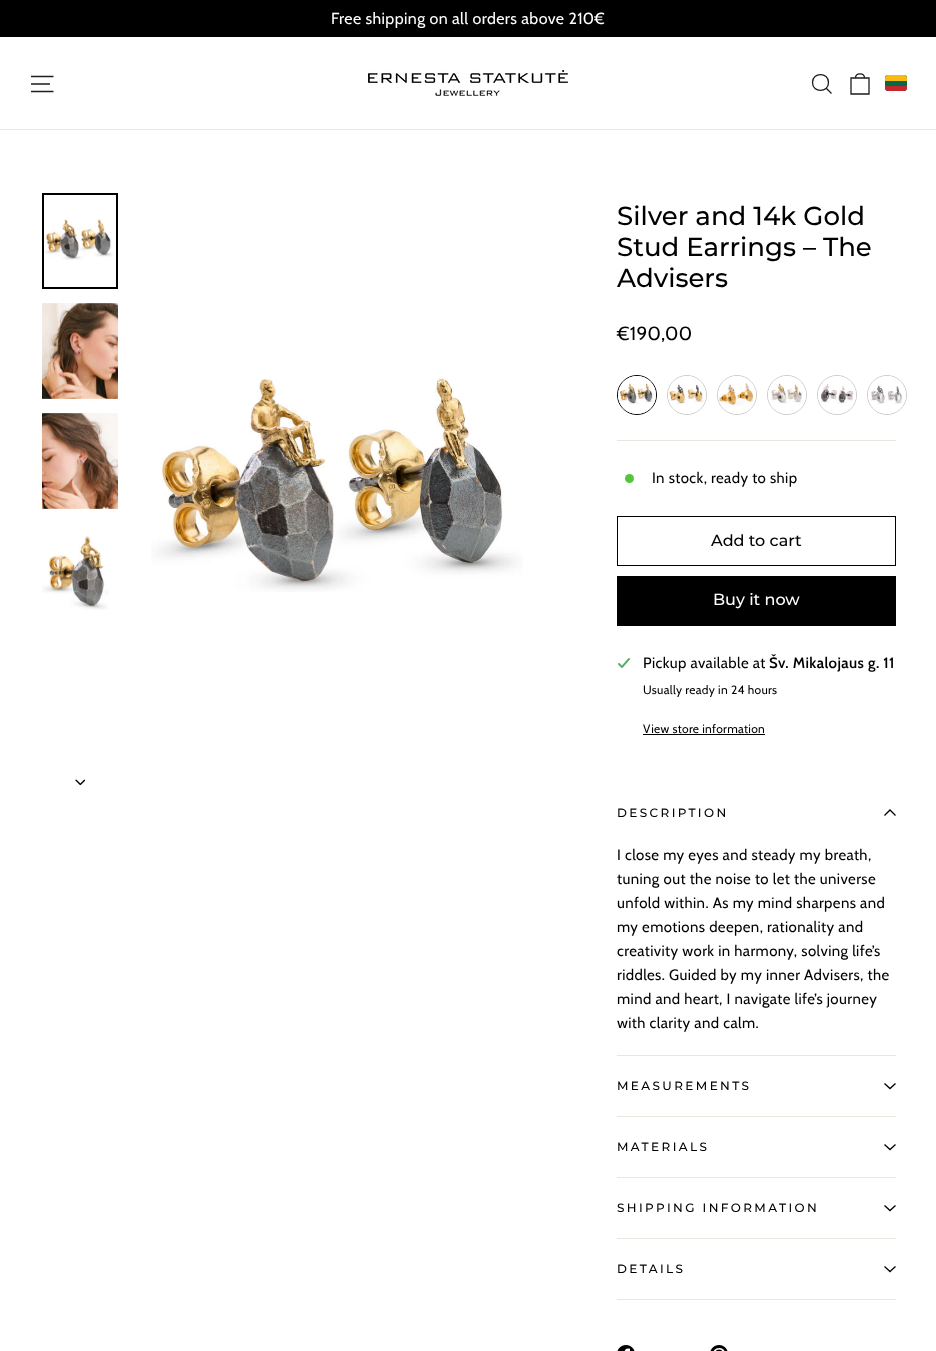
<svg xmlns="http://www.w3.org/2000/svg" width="936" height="1351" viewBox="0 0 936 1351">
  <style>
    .t1 { font: 16px Cabin; letter-spacing: 0.4px; fill: #fff; }
    .t2 { font: 500 26px Montserrat; fill: #000; }
    .t3 { font: 19px Cabin; letter-spacing: 0.4px; fill: #000; }
    .t4 { font: 15px Cabin; letter-spacing: 0.4px; fill: #000; }
    .t5 { font: 500 16px Montserrat; fill: #000; }
    .t6 { font: 500 16px Montserrat; fill: #fff; }
    .t7 { font: 600 15px Cabin; letter-spacing: 0.4px; fill: #000; }
    .t8 { font: 12px Cabin; letter-spacing: 0.3px; fill: #000; }
    .t9 { font: 500 12px Montserrat; letter-spacing: 2.4px; fill: #000; }
  </style>
  <rect width="100%" height="100%" fill="#fff"/>
  <rect x="0" y="0" width="936" height="37" fill="#000"/>
  <text x="331" y="24" class="t1">Free shipping on all orders above 210€</text>
  <rect x="0" y="129" width="936" height="1" fill="#e8e8e1"/>
  <path d="M31 76.5H53.5M31 84H50M31 91.5H53.5" fill="none" stroke="#1c1d1d" stroke-width="1.3"/>
  <image x="368" y="70" width="200" height="26" href="images/1.png"/>
  <path d="M828.5 82.5C828.5 93 812.5 93 812.5 82.5C812.5 72 828.5 72 828.5 82.5ZM831.5 93.5L826.5 88.5M851 78H869V94H851ZM855.5 78C855.5 72.5 864.5 72.5 864.5 78" fill="none" stroke="#1c1d1d" stroke-width="1.3"/>
  <rect x="885" y="75" width="22" height="16" rx="3" fill="#006a44"/>
  <path d="M885 86H907V88C907 89.5 905.5 91 904 91H888C886.5 91 885 89.5 885 88Z" fill="#c1272d"/>
  <path d="M888 75H904C905.5 75 907 76.5 907 78V81H885V78C885 76.5 886.5 75 888 75Z" fill="#fdb913"/>
  <image x="44" y="218" width="70" height="42" href="images/2.png"/>
  <rect x="43" y="194" width="74" height="94" fill="none" stroke="#000" stroke-width="2"/>
  <image x="42" y="303" width="76" height="96" href="images/3.png"/>
  <image x="42" y="413" width="76" height="96" href="images/4.png"/>
  <image x="42" y="536" width="67" height="74" href="images/5.png"/>
  <image x="75" y="779" width="10" height="6" href="images/6.png"/>
  <image x="151" y="378" width="372" height="214" href="images/7.png"/>
  <text x="617" y="225" class="t2">Silver and 14k Gold</text>
  <text x="617" y="256" class="t2">Stud Earrings – The</text>
  <text x="617" y="287" class="t2">Advisers</text>
  <text x="617" y="340" class="t3">€190,00</text>
  <circle cx="637" cy="395" r="19.5" fill="none" stroke="#000"/>
  <image x="618" y="376" width="38" height="38" href="images/8.png"/>
  <circle cx="687" cy="395" r="19.5" fill="none" stroke="#ccc"/>
  <image x="668" y="376" width="38" height="38" href="images/9.png"/>
  <circle cx="737" cy="395" r="19.5" fill="none" stroke="#ccc"/>
  <image x="718" y="376" width="38" height="38" href="images/10.png"/>
  <circle cx="787" cy="395" r="19.5" fill="none" stroke="#ccc"/>
  <image x="768" y="376" width="38" height="38" href="images/11.png"/>
  <circle cx="837" cy="395" r="19.5" fill="none" stroke="#ccc"/>
  <image x="818" y="376" width="38" height="38" href="images/12.png"/>
  <circle cx="887" cy="395" r="19.5" fill="none" stroke="#ccc"/>
  <image x="868" y="376" width="38" height="38" href="images/13.png"/>
  <rect x="617" y="440" width="279" height="1" fill="#e8e8e1"/>
  <circle cx="629.5" cy="478.5" r="4.5" fill="#54c63a"/>
  <text x="652" y="483" class="t4">In stock, ready to ship</text>
  <rect x="617.5" y="516.5" width="278" height="49" fill="none" stroke="#000"/>
  <text x="711" y="546" class="t5">Add to cart</text>
  <rect x="617" y="576" width="279" height="50" fill="#000"/>
  <text x="713" y="605" class="t6">Buy it now</text>
  <image x="618" y="658" width="12" height="10" href="images/14.png"/>
  <text x="643" y="668" class="t4">Pickup available at</text>
  <text x="769" y="668" class="t7">Šv. Mikalojaus g. 11</text>
  <text x="643" y="694" class="t8">Usually ready in 24 hours</text>
  <text x="643" y="733" class="t8">View store information</text>
  <rect x="643" y="734" width="122" height="1" fill="#000"/>
  <rect x="617" y="1055" width="279" height="1" fill="#e8e8e1"/>
  <text x="617" y="817" class="t9">DESCRIPTION</text>
  <path d="M895.5 815.5L890 810L884.5 815.5" fill="none" stroke="#000" stroke-width="1.3"/>
  <text x="617" y="860" class="t4">I close my eyes and steady my breath,</text>
  <text x="617" y="884" class="t4">tuning out the noise to let the universe</text>
  <text x="617" y="908" class="t4">unfold within. As my mind sharpens and</text>
  <text x="617" y="932" class="t4">my emotions deepen, rationality and</text>
  <text x="617" y="956" class="t4">creativity work in harmony, solving life’s</text>
  <text x="617" y="980" class="t4">riddles. Guided by my inner Advisers, the</text>
  <text x="617" y="1004" class="t4">mind and heart, I navigate life’s journey</text>
  <text x="617" y="1028" class="t4">with clarity and calm.</text>
  <rect x="617" y="1116" width="279" height="1" fill="#e8e8e1"/>
  <text x="617" y="1090" class="t9">MEASUREMENTS</text>
  <path d="M884.5 1083.5L890 1088.5L895.5 1083.5" fill="none" stroke="#000" stroke-width="1.3"/>
  <rect x="617" y="1177" width="279" height="1" fill="#e8e8e1"/>
  <text x="617" y="1151" class="t9">MATERIALS</text>
  <path d="M884.5 1144.5L890 1149.5L895.5 1144.5" fill="none" stroke="#000" stroke-width="1.3"/>
  <rect x="617" y="1238" width="279" height="1" fill="#e8e8e1"/>
  <text x="617" y="1212" class="t9">SHIPPING INFORMATION</text>
  <path d="M884.5 1205.5L890 1210.5L895.5 1205.5" fill="none" stroke="#000" stroke-width="1.3"/>
  <rect x="617" y="1299" width="279" height="1" fill="#e8e8e1"/>
  <text x="617" y="1273" class="t9">DETAILS</text>
  <path d="M884.5 1266.5L890 1271.5L895.5 1266.5" fill="none" stroke="#000" stroke-width="1.3"/>
  <image x="617" y="1345" width="18" height="6" href="images/15.png"/>
  <image x="710" y="1345" width="18" height="6" href="images/16.png"/>
</svg>
